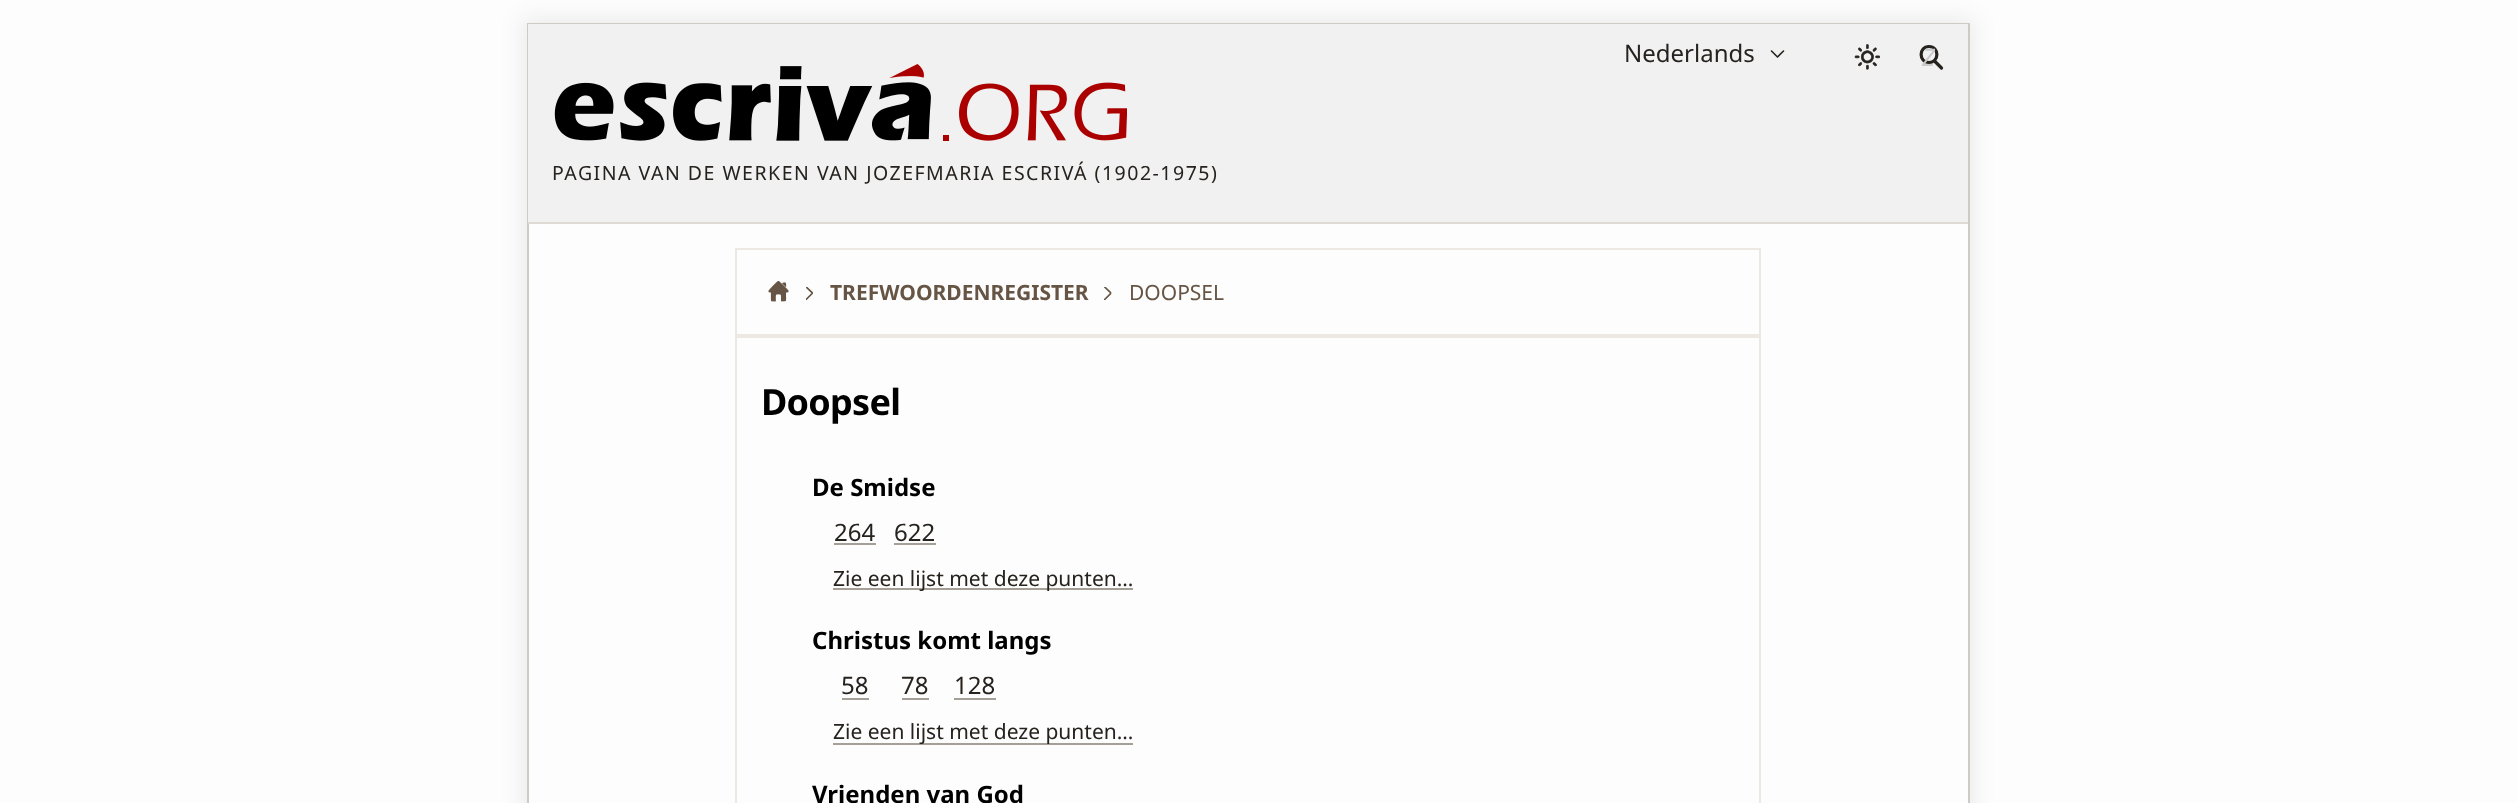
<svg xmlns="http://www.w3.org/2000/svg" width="2518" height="803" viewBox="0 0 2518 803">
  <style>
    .t1 { font: 24px Noto Sans; fill: #26221e; }
    .t2 { font: italic 24px Noto Sans; fill: #cbcaca; }
    .t3 { font: 19.5px Noto Sans; letter-spacing: 1.5px; fill: #26221e; }
    .t4 { font: bold 21px Noto Sans; fill: #654; }
    .t5 { font: 21px Noto Sans; fill: #654; }
    .t6 { font: bold 36px Noto Sans; letter-spacing: -0.75px; fill: #000; }
    .t7 { font: bold 24px Noto Sans; fill: #000; }
    .t8 { font: 21px Noto Sans; fill: #26221e; }
  </style>
  <defs>
    <clipPath id="clip1"><path d="M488 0H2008V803H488ZM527 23H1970V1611H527Z" clip-rule="evenodd"/></clipPath>
    <clipPath id="clip2"><rect x="1922" y="41" width="13" height="33"/></clipPath>
  </defs>
  <rect width="100%" height="100%" fill="#fdfdfd"/>
  <g clip-path="url(#clip1)">
    <rect x="522" y="18" width="1452" height="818" fill="#00000012" filter="blur(11px)"/>
  </g>
  <rect x="528" y="24" width="1441" height="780" fill="none" stroke="#cecbc4" stroke-width="2"/>
  <rect x="528" y="24" width="1440" height="198" fill="#f1f1f1"/>
  <rect x="528" y="222" width="1440" height="2" fill="#dedbd4"/>
  <text x="1624" y="62" class="t1">Nederlands</text>
  <path d="M1783.5 51L1777.5 57L1771.5 51" fill="none" stroke="#26221e" stroke-width="1.6" stroke-linecap="round" stroke-linejoin="round"/>
  <image x="1854" y="44" width="26" height="26" href="images/1.png"/>
  <path d="M1934.5 61L1941.5 68M1929 46.5C1939.5 46.5 1939.5 62.5 1929 62.5C1918.5 62.5 1918.5 46.5 1929 46.5Z" fill="none" stroke="#26221e" stroke-width="3.2" stroke-linecap="round"/>
  <g clip-path="url(#clip2)">
    <text x="1922" y="66" class="t2">Z</text>
  </g>
  <image x="554" y="64" width="573" height="77" href="images/2.png"/>
  <text x="552" y="180" class="t3">PAGINA VAN DE WERKEN VAN JOZEFMARIA ESCRIVÁ (1902-1975)</text>
  <rect x="736" y="249" width="1024" height="86" fill="none" stroke="#ece9e3" stroke-width="2"/>
  <image x="768" y="281" width="21" height="21" href="images/3.png"/>
  <image x="806" y="287" width="7" height="13" href="images/4.png"/>
  <text x="830" y="300" class="t4">TREFWOORDENREGISTER</text>
  <image x="1104" y="287" width="8" height="13" href="images/5.png"/>
  <text x="1129" y="300" class="t5">DOOPSEL</text>
  <rect x="736" y="337" width="1024" height="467" fill="none" stroke="#ece9e3" stroke-width="2"/>
  <text x="761" y="415" class="t6">Doopsel</text>
  <text x="812" y="496" class="t7">De Smidse</text>
  <text x="834" y="541" class="t1">264</text>
  <rect x="834" y="543" width="42" height="2" fill="#a4a098"/>
  <text x="894" y="541" class="t1">622</text>
  <rect x="894" y="543" width="42" height="2" fill="#a4a098"/>
  <rect x="833" y="588" width="300" height="2" fill="#a4a098"/>
  <text x="833" y="586" class="t8">Zie een lijst met deze punten…</text>
  <text x="812" y="649" class="t7">Christus komt langs</text>
  <text x="841" y="694" class="t1">58</text>
  <rect x="842" y="698" width="27" height="2" fill="#a4a098"/>
  <text x="901" y="694" class="t1">78</text>
  <rect x="902" y="698" width="27" height="2" fill="#a4a098"/>
  <text x="954" y="694" class="t1">128</text>
  <rect x="954" y="698" width="42" height="2" fill="#a4a098"/>
  <rect x="833" y="743" width="300" height="2" fill="#a4a098"/>
  <text x="833" y="739" class="t8">Zie een lijst met deze punten…</text>
  <text x="812" y="803" class="t7">Vrienden van God</text>
</svg>
